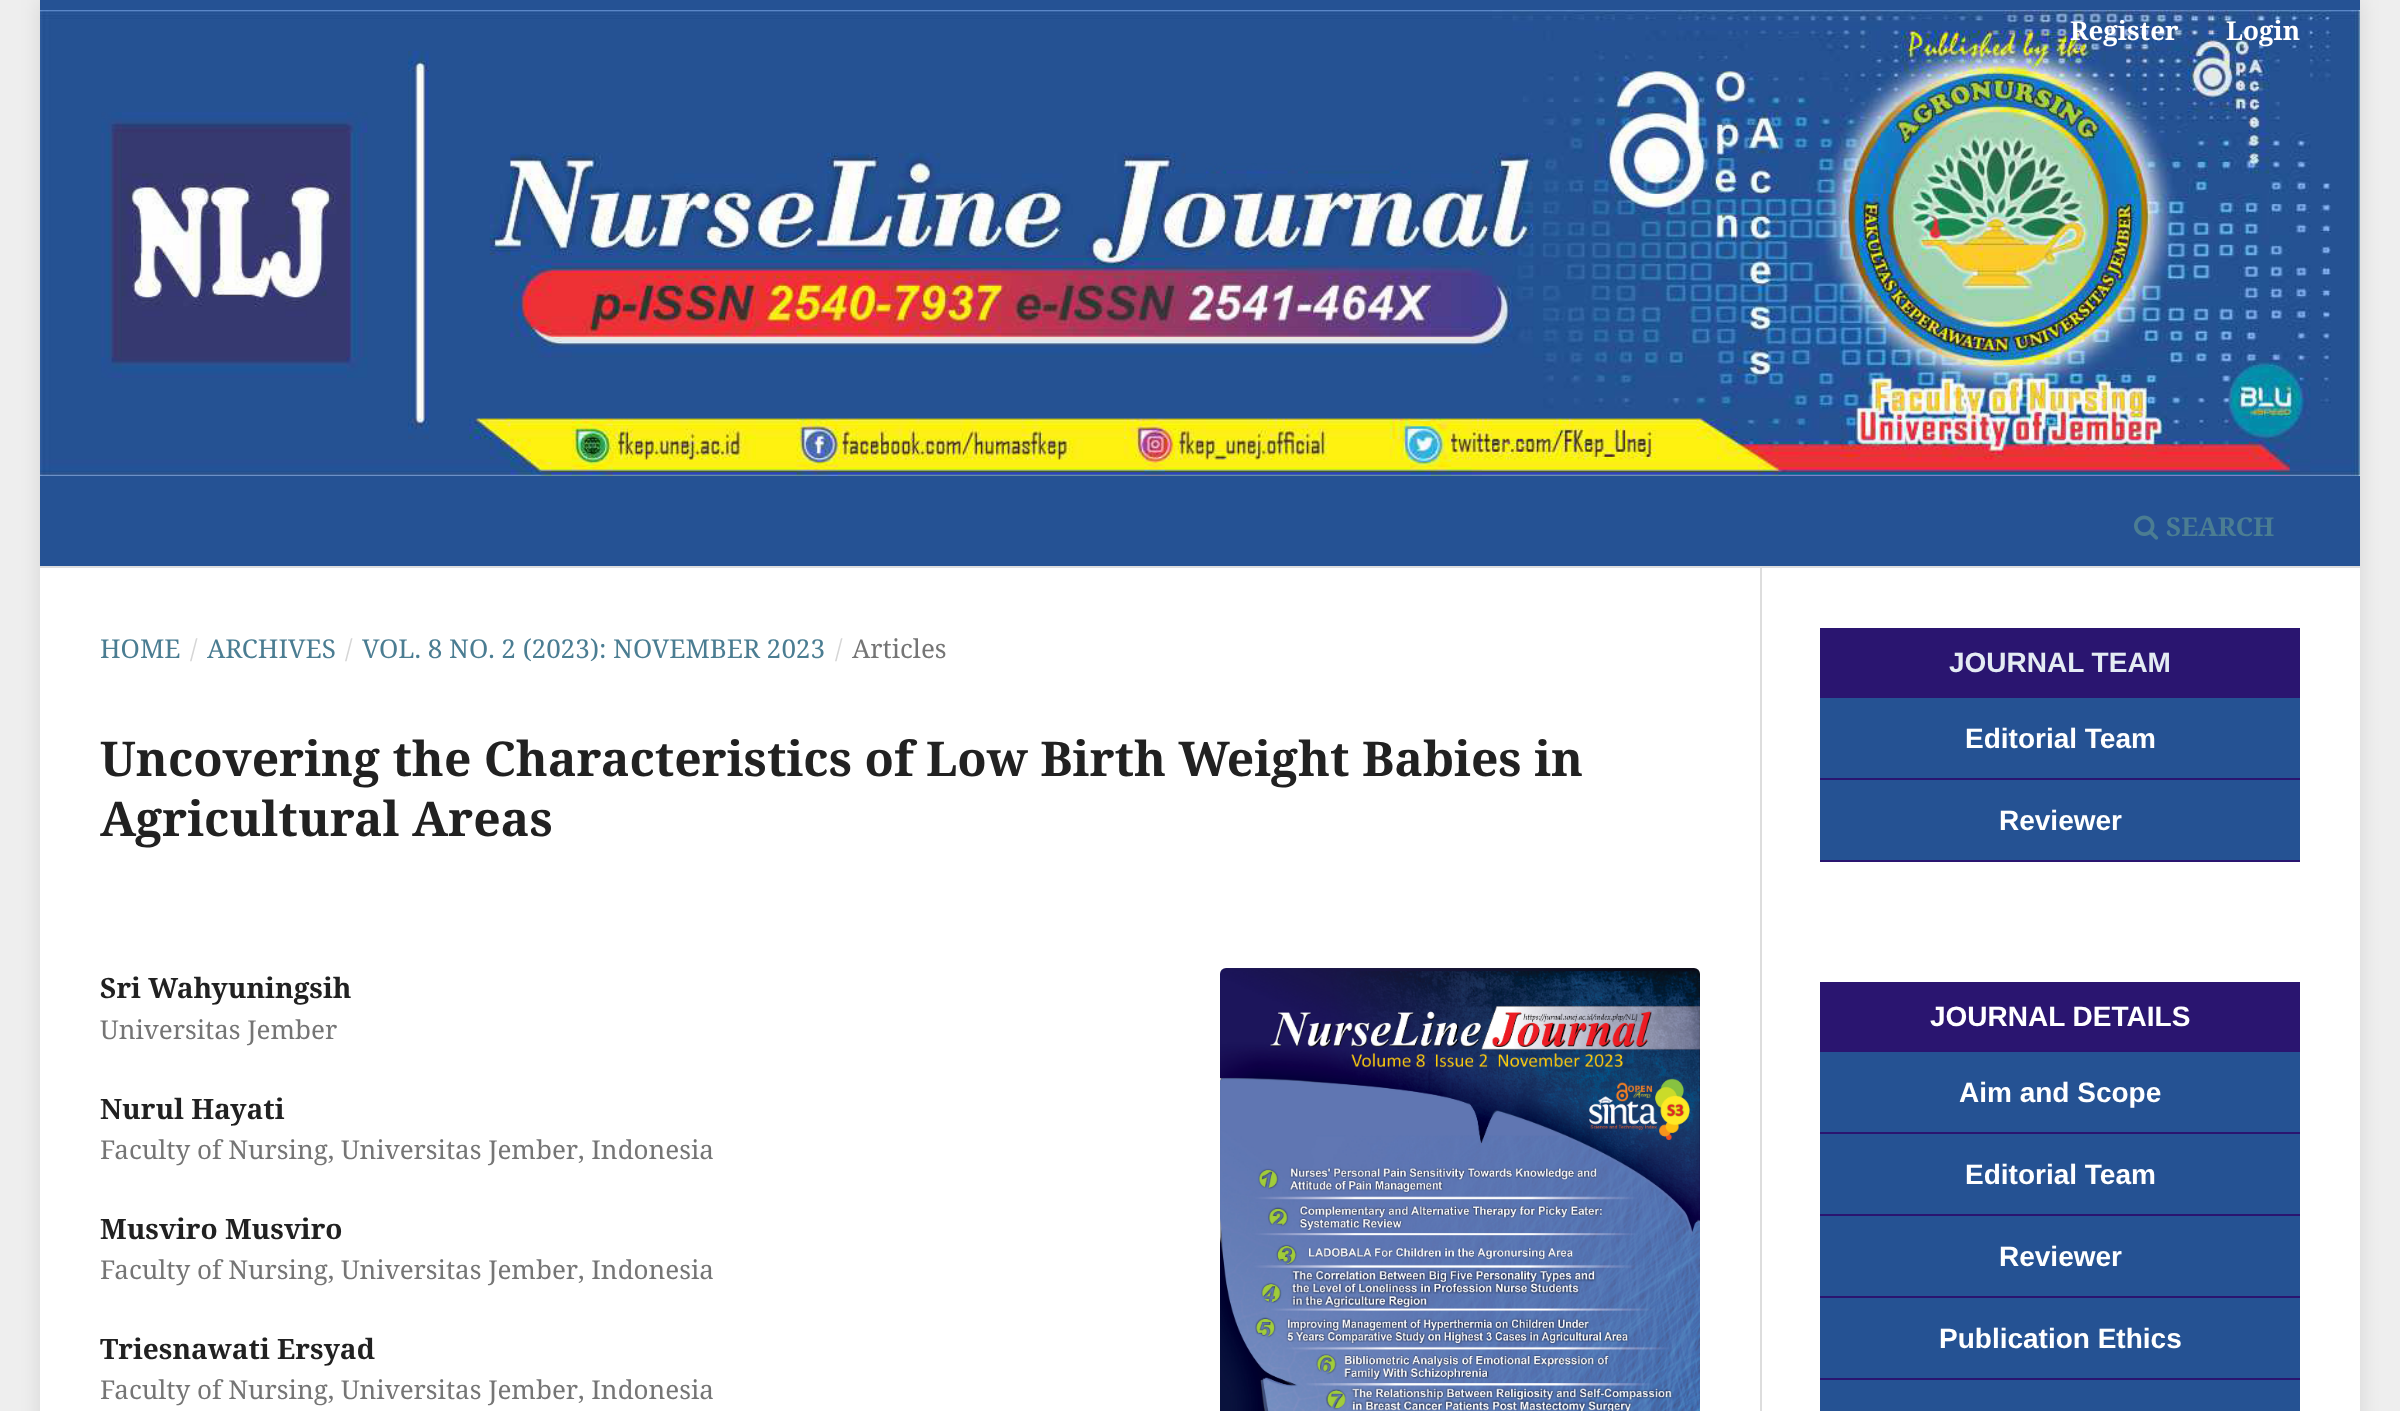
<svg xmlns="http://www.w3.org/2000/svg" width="2400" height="1411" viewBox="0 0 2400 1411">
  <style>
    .t1 { font: bold 26px Noto Serif; fill: #fff; }
    .t2 { font: bold 26px Noto Serif; fill: #4b7d92; }
    .t3 { font: 26px Noto Serif; fill: #4b7d92; }
    .t4 { font: 26px Noto Serif; fill: #d6d6d6; }
    .t5 { font: 26px Noto Serif; fill: #757575; }
    .t6 { font: bold 48px Noto Serif; fill: #212121; }
    .t7 { font: bold 28px Noto Serif; fill: #212121; }
    .t8 { font: bold 28px Liberation Sans; fill: #e4ebf3; }
    .t9 { font: bold 28px Liberation Sans; fill: #fff; }
  </style>
  <rect width="100%" height="100%" fill="#eee"/>
  <rect x="40" y="0" width="2320" height="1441" fill="#0000001a" filter="blur(10px)"/>
  <rect x="40" y="568" width="2320" height="843" fill="#fff"/>
  <rect x="40" y="0" width="2320" height="566" fill="#255294"/>
  <rect x="40" y="566" width="2320" height="2" fill="#ddd"/>
  <image x="40" y="10" width="2320" height="466" href="images/1.png"/>
  <text x="2070" y="40" class="t1">Register</text>
  <text x="2226" y="40" class="t1">Login</text>
  <image x="2134" y="515" width="25" height="25" href="images/2.png"/>
  <text x="2166" y="536" class="t2">SEARCH</text>
  <text x="100" y="658" class="t3">HOME</text>
  <text x="190" y="658" class="t4">/</text>
  <text x="207" y="658" class="t3">ARCHIVES</text>
  <text x="345" y="658" class="t4">/</text>
  <text x="362" y="658" class="t3">VOL. 8 NO. 2 (2023): NOVEMBER 2023</text>
  <text x="835" y="658" class="t4">/</text>
  <text x="852" y="658" class="t5">Articles</text>
  <text x="100" y="776" class="t6">Uncovering the Characteristics of Low Birth Weight Babies in</text>
  <text x="100" y="836" class="t6">Agricultural Areas</text>
  <text x="100" y="998" class="t7">Sri Wahyuningsih</text>
  <text x="100" y="1039" class="t5">Universitas Jember</text>
  <text x="100" y="1119" class="t7">Nurul Hayati</text>
  <text x="100" y="1159" class="t5">Faculty of Nursing, Universitas Jember, Indonesia</text>
  <text x="100" y="1239" class="t7">Musviro Musviro</text>
  <text x="100" y="1279" class="t5">Faculty of Nursing, Universitas Jember, Indonesia</text>
  <text x="100" y="1359" class="t7">Triesnawati Ersyad</text>
  <text x="100" y="1399" class="t5">Faculty of Nursing, Universitas Jember, Indonesia</text>
  <image x="1220" y="968" width="480" height="443" href="images/3.png"/>
  <rect x="1760" y="568" width="2" height="843" fill="#ddd"/>
  <rect x="1820" y="628" width="480" height="70" fill="#2a1570"/>
  <text x="1949" y="672" class="t8">JOURNAL TEAM</text>
  <rect x="1820" y="698" width="480" height="162" fill="#255293"/>
  <rect x="1820" y="778" width="480" height="2" fill="#2a1570"/>
  <text x="1965" y="748" class="t9">Editorial Team</text>
  <rect x="1820" y="860" width="480" height="2" fill="#2a1570"/>
  <text x="1999" y="830" class="t9">Reviewer</text>
  <rect x="1820" y="982" width="480" height="70" fill="#2a1570"/>
  <text x="1930" y="1026" class="t9">JOURNAL DETAILS</text>
  <rect x="1820" y="1052" width="480" height="359" fill="#255293"/>
  <rect x="1820" y="1132" width="480" height="2" fill="#2a1570"/>
  <text x="1959" y="1102" class="t9">Aim and Scope</text>
  <rect x="1820" y="1214" width="480" height="2" fill="#2a1570"/>
  <text x="1965" y="1184" class="t9">Editorial Team</text>
  <rect x="1820" y="1296" width="480" height="2" fill="#2a1570"/>
  <text x="1999" y="1266" class="t9">Reviewer</text>
  <rect x="1820" y="1378" width="480" height="2" fill="#2a1570"/>
  <text x="1939" y="1348" class="t9">Publication Ethics</text>
</svg>
